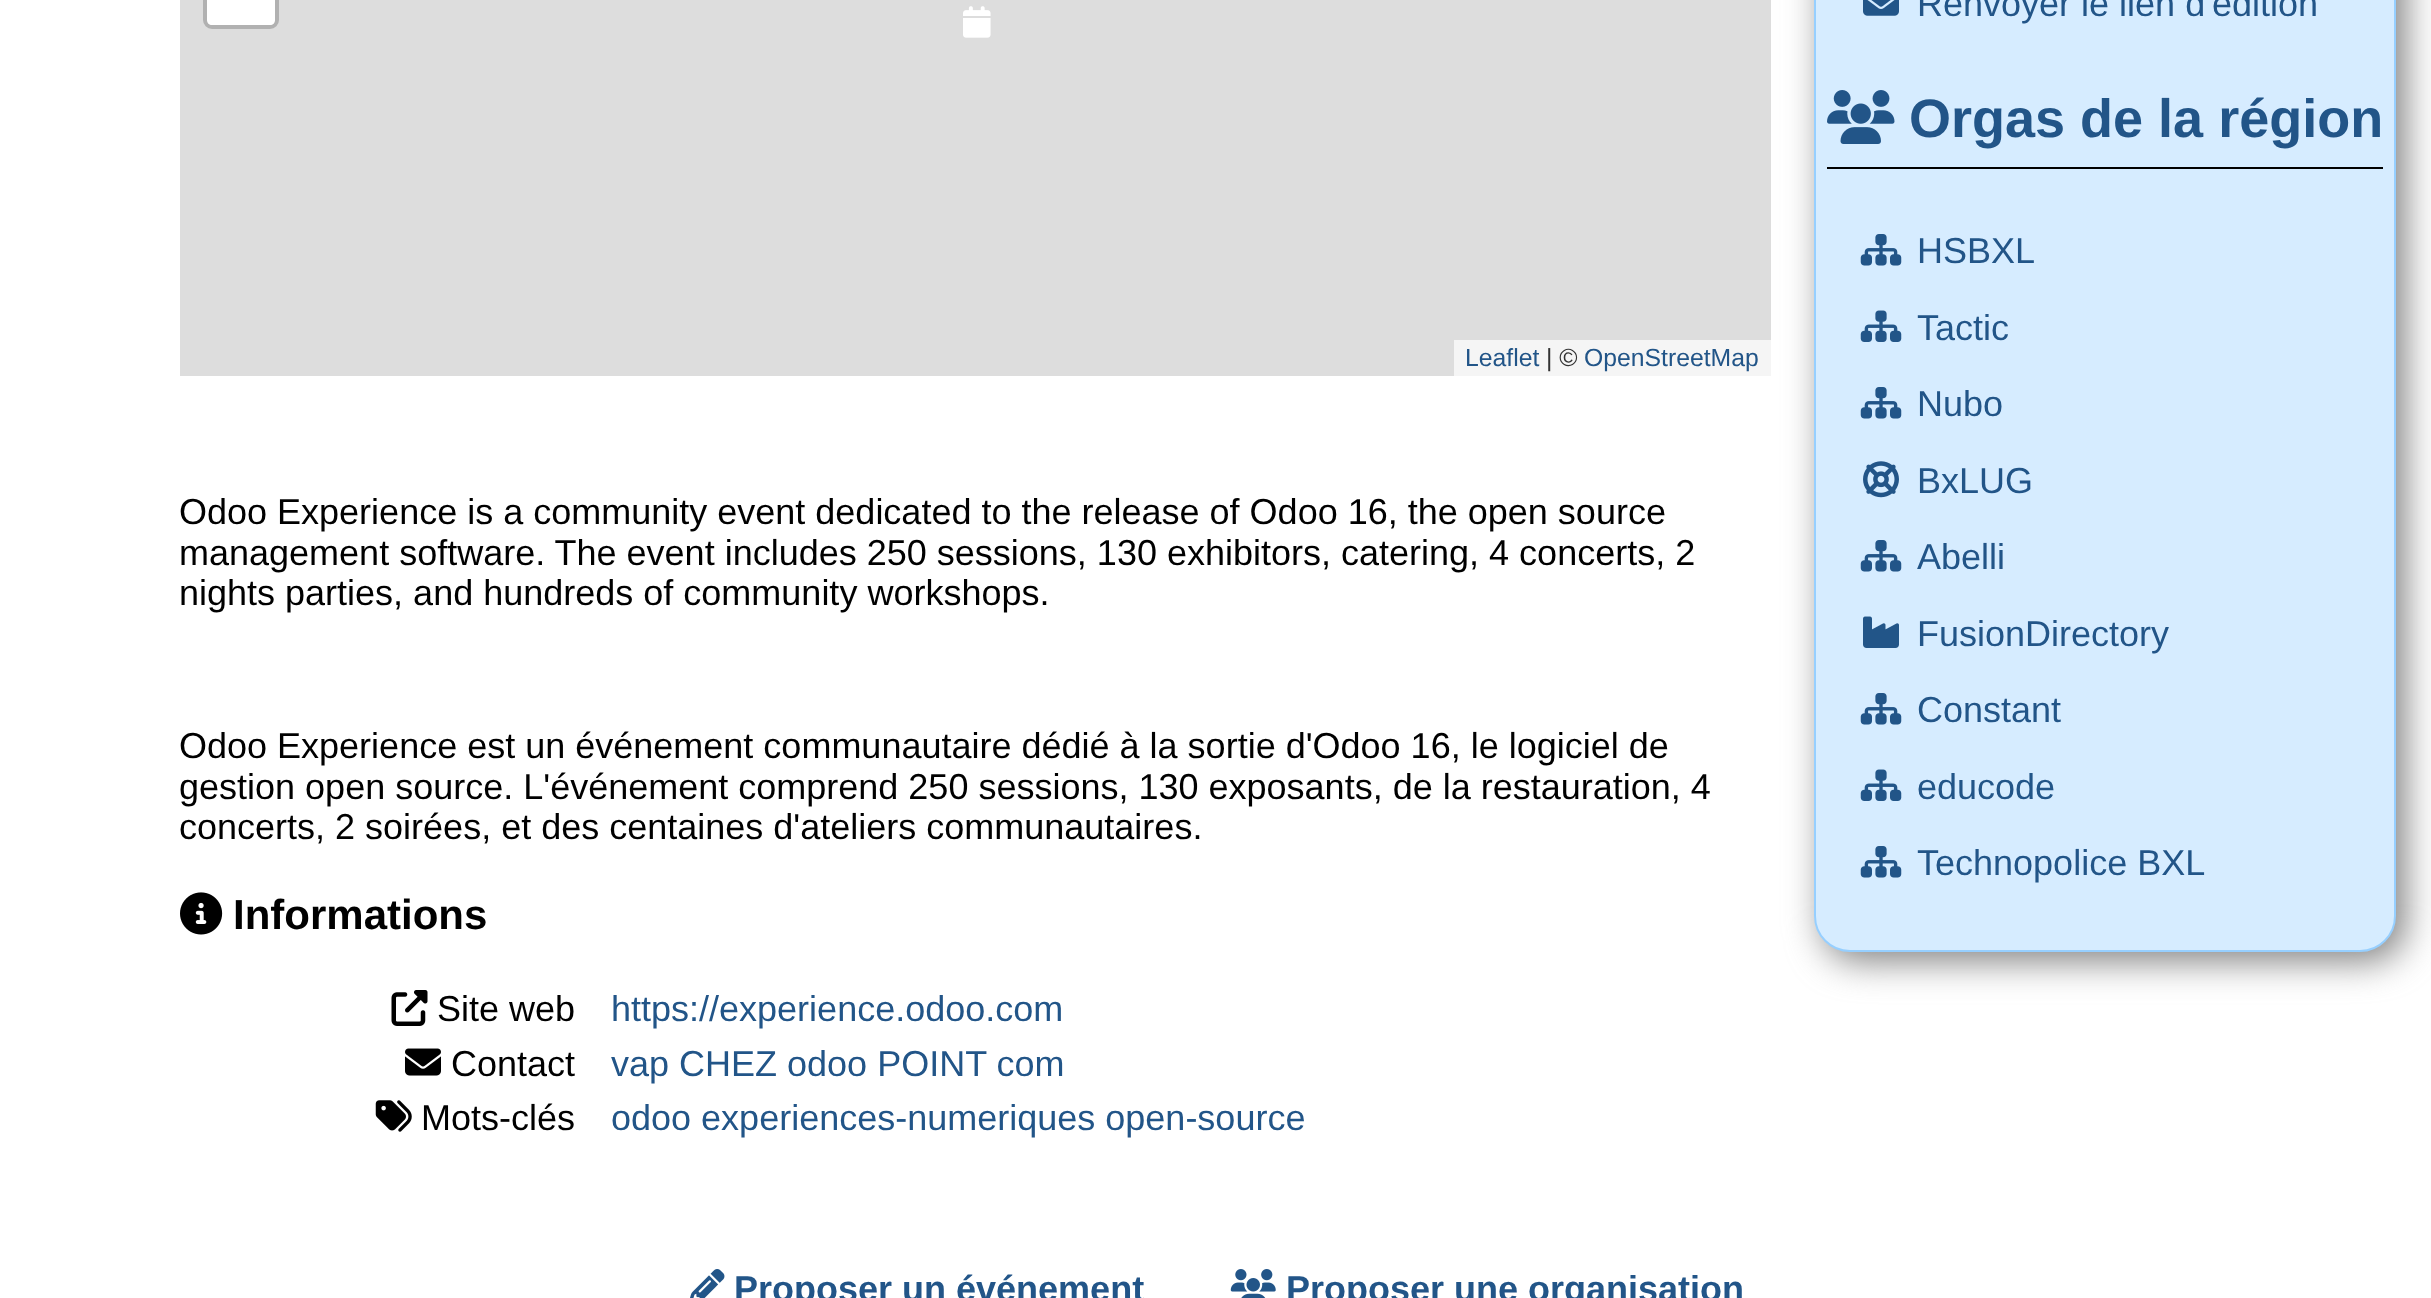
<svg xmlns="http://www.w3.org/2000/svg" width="2431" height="1298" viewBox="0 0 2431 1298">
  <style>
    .t1 { font: 24.75px Liberation Sans; fill: #258; }
    .t2 { font: 24.75px Liberation Sans; fill: #333; }
    .t3 { font: 36px Liberation Sans; fill: #258; }
    .t4 { font: bold 54px Liberation Sans; fill: #258; }
    .t5 { font: 36px Liberation Sans; fill: #000; }
    .t6 { font: bold 42px Liberation Sans; fill: #000; }
    .t7 { font: bold 36px Liberation Sans; fill: #258; }
  </style>
  <rect width="100%" height="100%" fill="#fff"/>
  <rect x="180" y="0" width="1591" height="376" fill="#ddd"/>
  <image x="963" y="6" width="28" height="32" href="images/1.png"/>
  <rect x="205.5" y="-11.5" width="71" height="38" rx="6.5" fill="none" stroke="#b1b1b1" stroke-width="5"/>
  <path d="M207-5H275V20C275 23 273 25 270 25H212C209 25 207 23 207 20Z" fill="#fff"/>
  <rect x="1823" y="-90" width="582" height="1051" rx="36" fill="#808080" filter="blur(18px)"/>
  <rect x="1454" y="340" width="317" height="36" fill="#f5f5f5"/>
  <text x="1465" y="366" class="t1">Leaflet</text>
  <text x="1546" y="366" class="t2">| ©</text>
  <text x="1584" y="366" class="t1">OpenStreetMap</text>
  <rect x="1815" y="-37" width="580" height="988" rx="35" fill="#d6ecff" stroke="#96cfff" stroke-width="2"/>
  <image x="1863" y="0" width="36" height="16" href="images/2.png"/>
  <text x="1917" y="16" class="t3">Renvoyer le lien d'édition</text>
  <rect x="1827" y="167" width="556" height="2" fill="#000"/>
  <image x="1827" y="90" width="68" height="54" href="images/3.png"/>
  <text x="1909" y="137" class="t4">Orgas de la région</text>
  <image x="1860" y="234" width="42" height="32" href="images/4.png"/>
  <text x="1917" y="263" class="t3">HSBXL</text>
  <image x="1860" y="310" width="42" height="32" href="images/5.png"/>
  <text x="1917" y="340" class="t3">Tactic</text>
  <image x="1860" y="387" width="42" height="32" href="images/4.png"/>
  <text x="1917" y="416" class="t3">Nubo</text>
  <image x="1863" y="461" width="36" height="37" href="images/6.png"/>
  <text x="1917" y="493" class="t3">BxLUG</text>
  <image x="1860" y="540" width="42" height="32" href="images/4.png"/>
  <text x="1917" y="569" class="t3">Abelli</text>
  <image x="1863" y="616" width="36" height="32" href="images/7.png"/>
  <text x="1917" y="646" class="t3">FusionDirectory</text>
  <image x="1860" y="693" width="42" height="32" href="images/4.png"/>
  <text x="1917" y="722" class="t3">Constant</text>
  <image x="1860" y="769" width="42" height="32" href="images/5.png"/>
  <text x="1917" y="799" class="t3">educode</text>
  <image x="1860" y="846" width="42" height="32" href="images/4.png"/>
  <text x="1917" y="875" class="t3">Technopolice BXL</text>
  <text x="179" y="524" class="t5">Odoo Experience is a community event dedicated to the release of Odoo 16, the open source</text>
  <text x="179" y="565" class="t5">management software. The event includes 250 sessions, 130 exhibitors, catering, 4 concerts, 2</text>
  <text x="179" y="605" class="t5">nights parties, and hundreds of community workshops.</text>
  <text x="179" y="758" class="t5">Odoo Experience est un événement communautaire dédié à la sortie d'Odoo 16, le logiciel de</text>
  <text x="179" y="799" class="t5">gestion open source. L'événement comprend 250 sessions, 130 exposants, de la restauration, 4</text>
  <text x="179" y="839" class="t5">concerts, 2 soirées, et des centaines d'ateliers communautaires.</text>
  <image x="180" y="892" width="43" height="43" href="images/8.png"/>
  <text x="233" y="929" class="t6">Informations</text>
  <image x="391" y="990" width="37" height="36" href="images/9.png"/>
  <text x="437" y="1021" class="t5">Site web</text>
  <text x="611" y="1021" class="t3">https://experience.odoo.com</text>
  <image x="405" y="1048" width="36" height="28" href="images/10.png"/>
  <text x="451" y="1076" class="t5">Contact</text>
  <text x="611" y="1076" class="t3">vap CHEZ odoo POINT com</text>
  <image x="375" y="1100" width="37" height="32" href="images/11.png"/>
  <text x="421" y="1130" class="t5">Mots-clés</text>
  <text x="611" y="1130" class="t3">odoo experiences-numeriques open-source</text>
  <image x="690" y="1269" width="35" height="29" href="images/12.png"/>
  <text x="734" y="1301" class="t7">Proposer un événement</text>
  <image x="1230" y="1269" width="46" height="29" href="images/13.png"/>
  <text x="1286" y="1301" class="t7">Proposer une organisation</text>
</svg>
